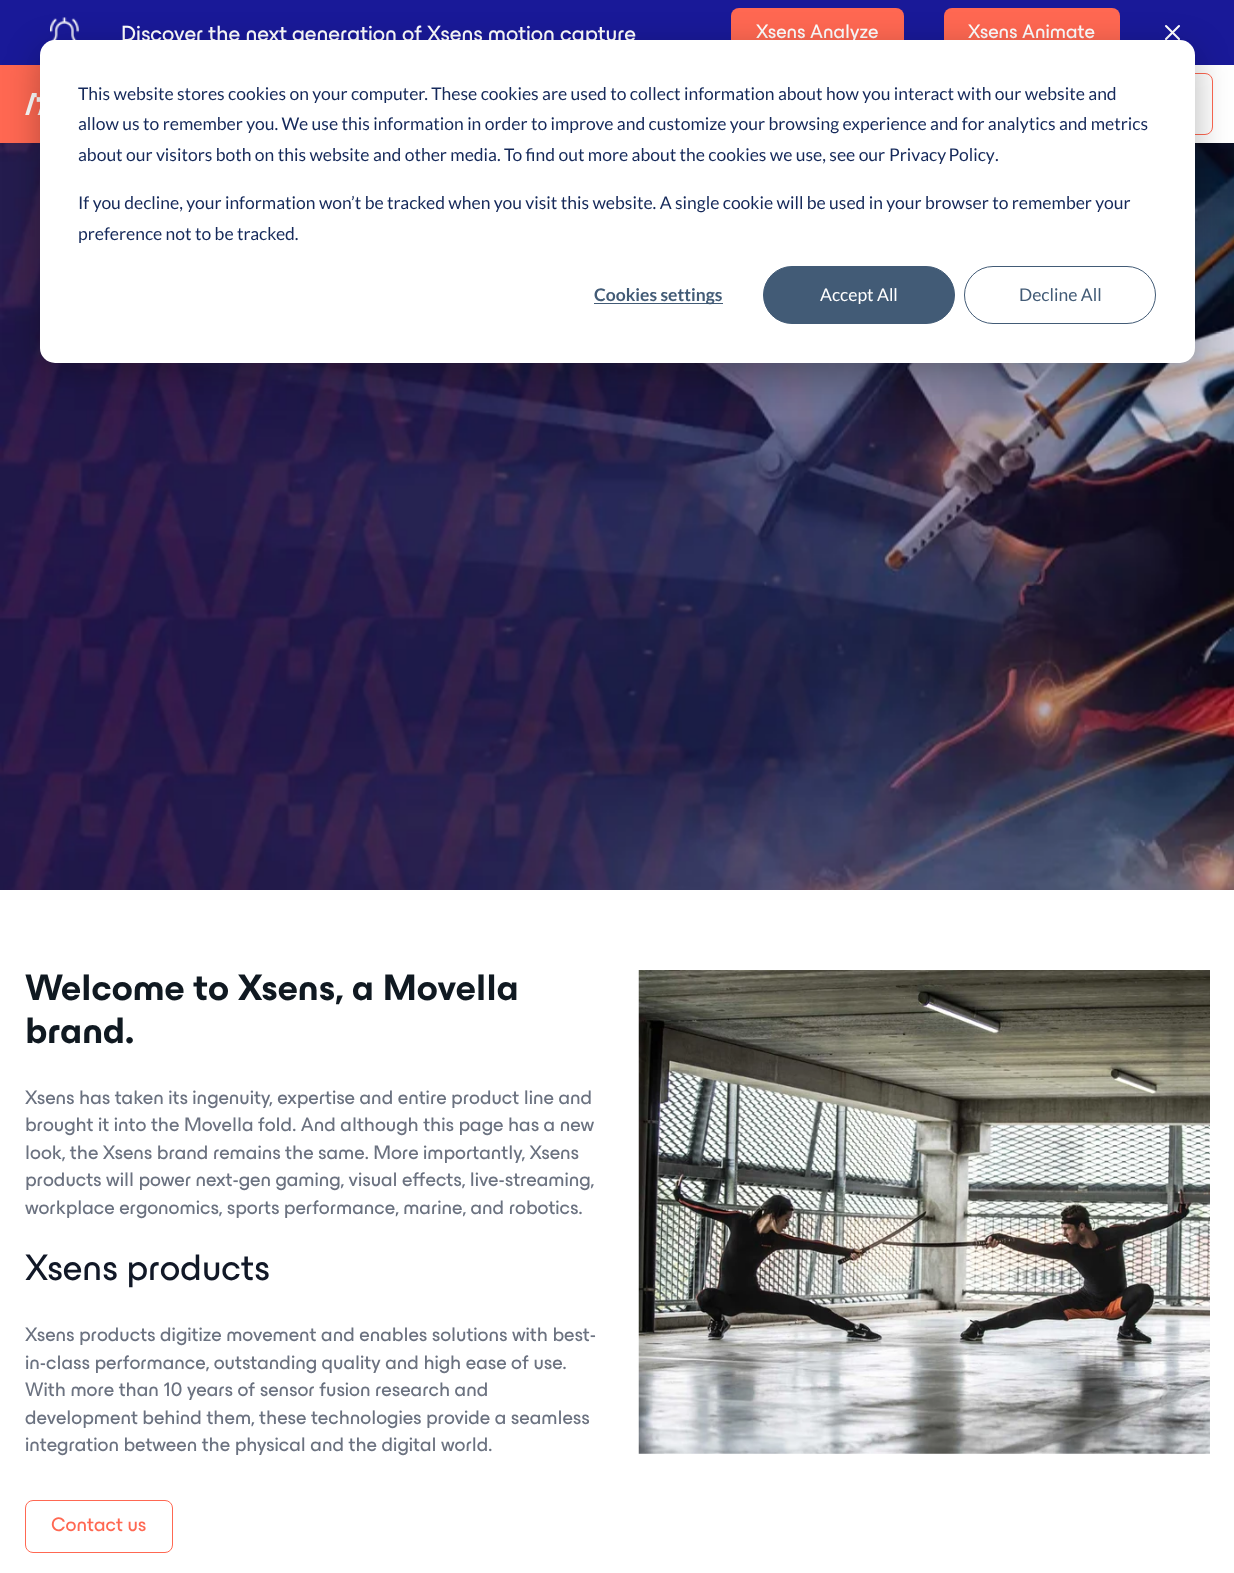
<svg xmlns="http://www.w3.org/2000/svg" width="1234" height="1573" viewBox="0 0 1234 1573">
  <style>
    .t1 { font: 22.5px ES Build; fill: #fff; }
    .t2 { font: 20px ES Build; fill: #fff; }
    .t3 { font: bold 37.5px ES Build; fill: #101921; }
    .t4 { font: 20px ES Build; fill: #6b7280; }
    .t5 { font: 37.5px ES Build; fill: #111827; }
    .t6 { font: 20px ES Build; fill: #ff6852; }
    .t7 { font: 17.5px Lato; fill: #15295a; }
    .t8 { font: bold 17.5px Lato; fill: #425b76; }
    .t9 { font: 17.5px Lato; fill: #fff; }
    .t10 { font: 17.5px Lato; fill: #425b76; }
  </style>
  <rect width="100%" height="100%" fill="#fff"/>
  <rect x="0" y="0" width="1234" height="65" fill="#191998"/>
  <image x="50" y="17" width="30" height="24" href="images/1.png"/>
  <text x="121" y="41" class="t1">Discover the next generation of Xsens motion capture</text>
  <rect x="731" y="8" width="173" height="50" rx="8" fill="#ff6852"/>
  <text x="756" y="38" class="t2">Xsens Analyze</text>
  <rect x="944" y="8" width="176" height="50" rx="8" fill="#ff6852"/>
  <text x="968" y="38" class="t2">Xsens Animate</text>
  <path d="M1166 39L1179 26M1166 26L1179 39" fill="none" stroke="#fff" stroke-width="2.1" stroke-linecap="round" stroke-linejoin="round"/>
  <rect x="0" y="65" width="40" height="78" fill="#ff6852"/>
  <image x="25" y="93" width="15" height="22" href="images/2.png"/>
  <rect x="1010.5" y="73.5" width="202" height="61" rx="7.5" fill="none" stroke="#ff6852"/>
  <image x="0" y="143" width="1234" height="747" href="images/3.png"/>
  <text x="25" y="1000" class="t3">Welcome to Xsens, a Movella</text>
  <text x="25" y="1043" class="t3">brand.</text>
  <text x="25" y="1104" class="t4">Xsens has taken its ingenuity, expertise and entire product line and</text>
  <text x="25" y="1131" class="t4">brought it into the Movella fold. And although this page has a new</text>
  <text x="25" y="1159" class="t4">look, the Xsens brand remains the same. More importantly, Xsens</text>
  <text x="25" y="1186" class="t4">products will power next-gen gaming, visual effects, live-streaming,</text>
  <text x="25" y="1214" class="t4">workplace ergonomics, sports performance, marine, and robotics.</text>
  <text x="25" y="1280" class="t5">Xsens products</text>
  <text x="25" y="1341" class="t4">Xsens products digitize movement and enables solutions with best-</text>
  <text x="25" y="1369" class="t4">in-class performance, outstanding quality and high ease of use.</text>
  <text x="25" y="1396" class="t4">With more than 10 years of sensor fusion research and</text>
  <text x="25" y="1424" class="t4">development behind them, these technologies provide a seamless</text>
  <text x="25" y="1451" class="t4">integration between the physical and the digital world.</text>
  <rect x="25.5" y="1500.5" width="147" height="52" rx="7.5" fill="none" stroke="#ff6852"/>
  <text x="51" y="1531" class="t6">Contact us</text>
  <image x="638" y="970" width="572" height="484" href="images/4.png"/>
  <rect x="40" y="50" width="1155" height="323" rx="15" fill="#00000047" filter="blur(17.5px)"/>
  <rect x="40" y="40" width="1155" height="323" rx="15" fill="#fff"/>
  <text x="78" y="100" class="t7">This website stores cookies on your computer. These cookies are used to collect information about how you interact with our website and</text>
  <text x="78" y="130" class="t7">allow us to remember you. We use this information in order to improve and customize your browsing experience and for analytics and metrics</text>
  <text x="78" y="161" class="t7">about our visitors both on this website and other media. To find out more about the cookies we use, see our</text>
  <text x="889" y="161" word-spacing="-1" class="t7">Privacy Policy</text>
  <text x="995" y="161" class="t7">.</text>
  <text x="78" y="209" class="t7">If you decline, your information won’t be tracked when you visit this website. A single cookie will be used in your browser to remember your</text>
  <text x="78" y="240" class="t7">preference not to be tracked.</text>
  <rect x="594" y="303" width="129" height="1" fill="#425b76"/>
  <text x="594" y="301" class="t8">Cookies settings</text>
  <rect x="763.5" y="266.5" width="191" height="57" rx="28.5" fill="#425b76" stroke="#425b76"/>
  <text x="820" y="301" class="t9">Accept All</text>
  <rect x="964.5" y="266.5" width="191" height="57" rx="28.5" fill="none" stroke="#425b76"/>
  <text x="1019" y="301" class="t10">Decline All</text>
</svg>
